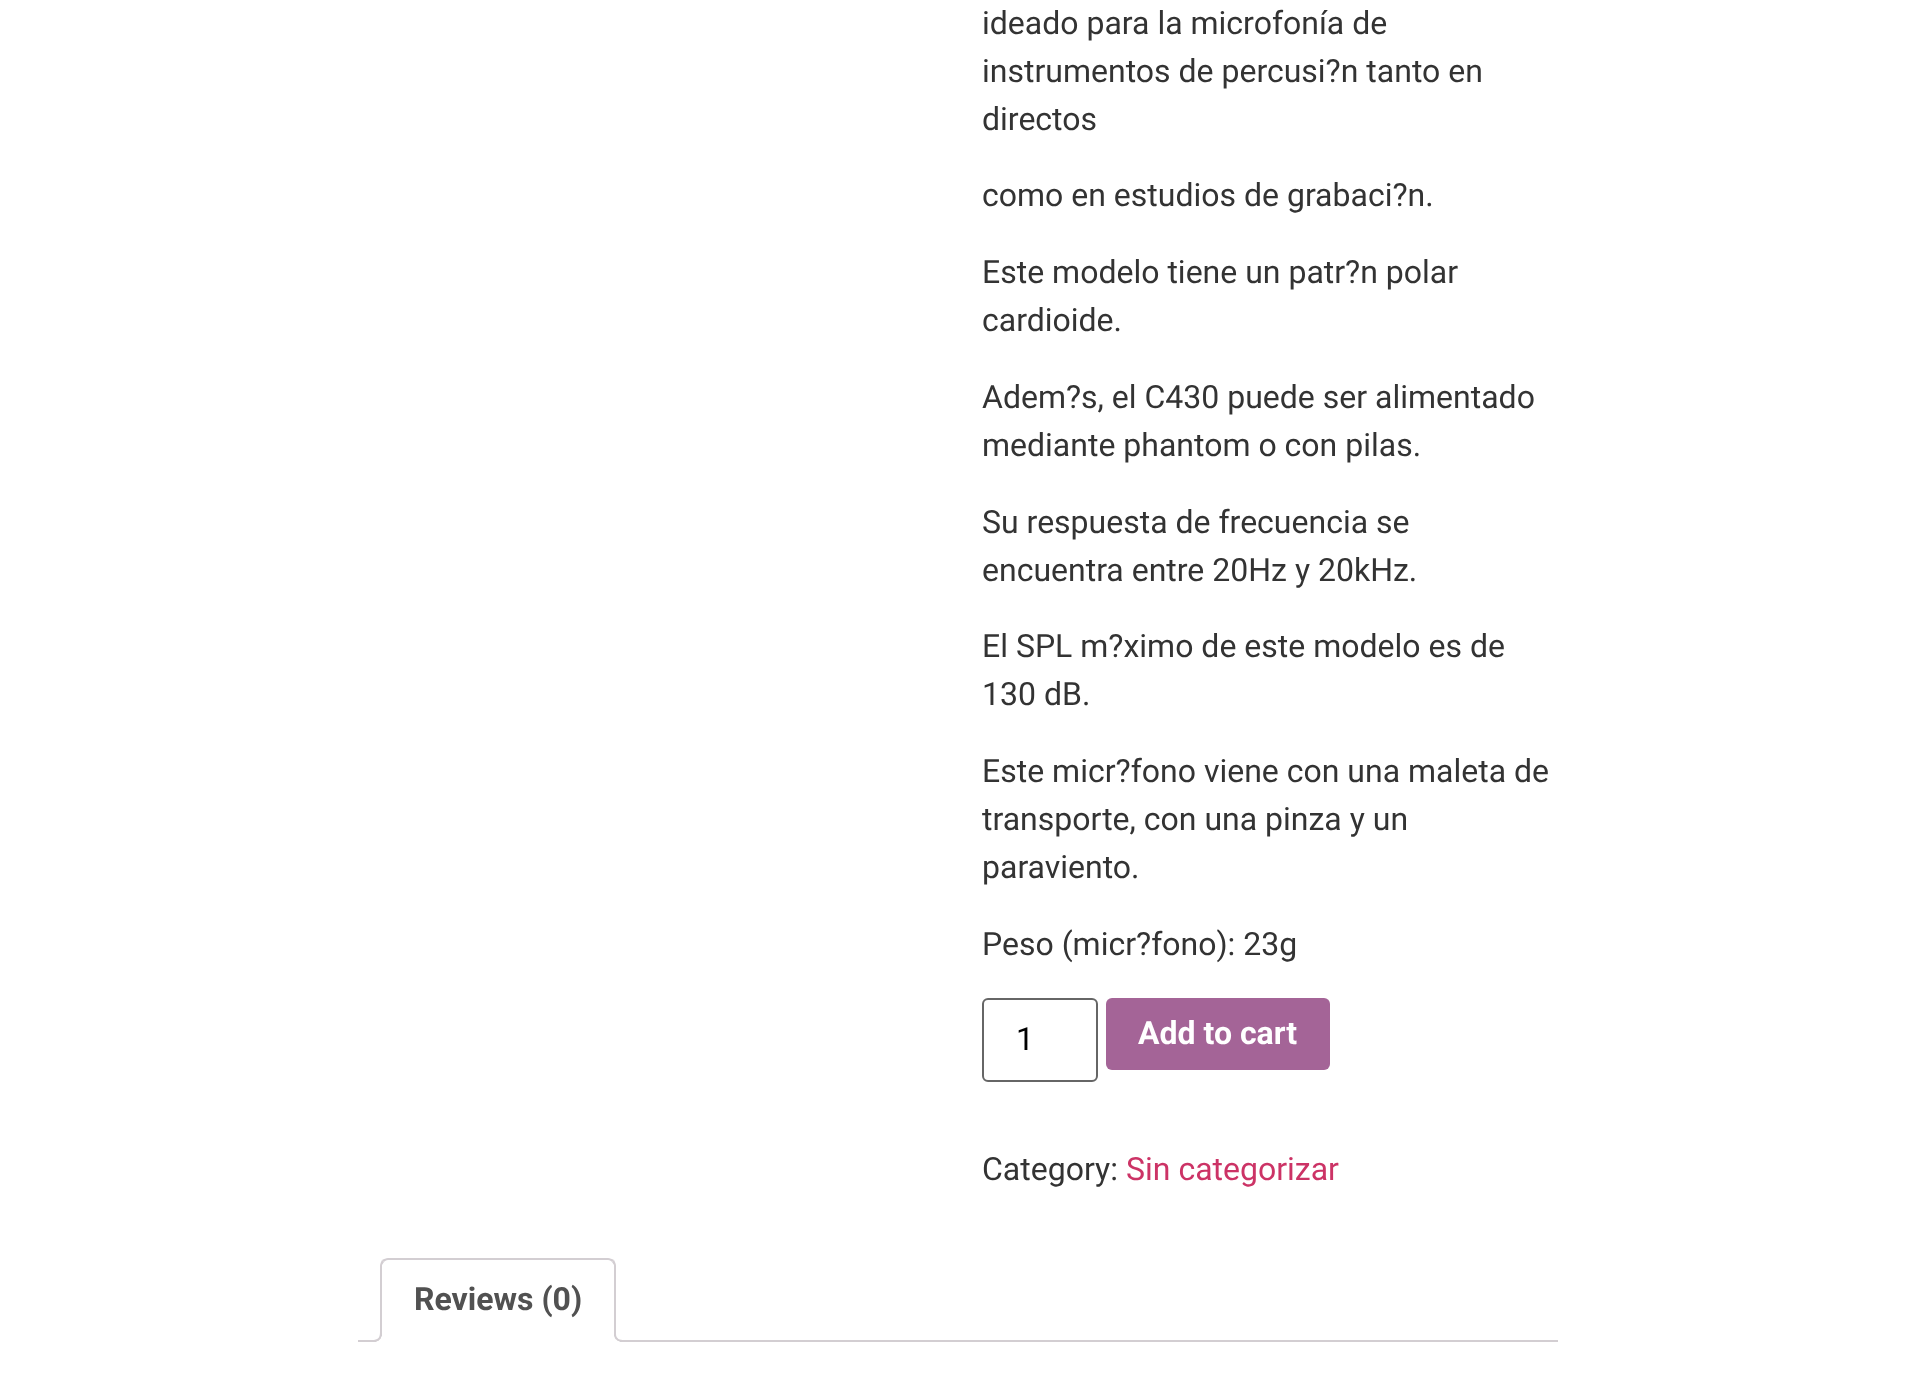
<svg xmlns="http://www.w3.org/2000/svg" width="1916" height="1377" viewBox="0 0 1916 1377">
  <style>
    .t1 { font: 32px Roboto; fill: #333; }
    .t2 { font: 32px Roboto; fill: #000; }
    .t3 { font: bold 32px Roboto; fill: #fff; }
    .t4 { font: 32px Roboto; fill: #c36; }
    .t5 { font: bold 32px Roboto; fill: #515151; }
  </style>
  <defs>
    <clipPath id="clip1"><rect x="358" y="1258" width="1200" height="84"/></clipPath>
  </defs>
  <rect width="100%" height="100%" fill="#fff"/>
  <text x="982" y="34" class="t1">ideado para la microfonía de</text>
  <text x="982" y="82" class="t1">instrumentos de percusi?n tanto en</text>
  <text x="982" y="130" class="t1">directos</text>
  <text x="982" y="206" class="t1">como en estudios de grabaci?n.</text>
  <text x="982" y="283" class="t1">Este modelo tiene un patr?n polar</text>
  <text x="982" y="331" class="t1">cardioide.</text>
  <text x="982" y="408" class="t1">Adem?s, el C430 puede ser alimentado</text>
  <text x="982" y="456" class="t1">mediante phantom o con pilas.</text>
  <text x="982" y="533" class="t1">Su respuesta de frecuencia se</text>
  <text x="982" y="581" class="t1">encuentra entre 20Hz y 20kHz.</text>
  <text x="982" y="657" class="t1">El SPL m?ximo de este modelo es de</text>
  <text x="982" y="705" class="t1">130 dB.</text>
  <text x="982" y="782" class="t1">Este micr?fono viene con una maleta de</text>
  <text x="982" y="830" class="t1">transporte, con una pinza y un</text>
  <text x="982" y="878" class="t1">paraviento.</text>
  <text x="982" y="955" class="t1">Peso (micr?fono): 23g</text>
  <rect x="983" y="999" width="114" height="82" rx="5" fill="none" stroke="#666" stroke-width="2"/>
  <text x="1016" y="1050" class="t2">1</text>
  <rect x="1106" y="998" width="224" height="72" rx="6" fill="#a46497"/>
  <text x="1138" y="1044" class="t3">Add to cart</text>
  <text x="982" y="1180" class="t1">Category:</text>
  <text x="1126" y="1180" class="t4">Sin categorizar</text>
  <rect x="358" y="1340" width="1200" height="2" fill="#d3ced2"/>
  <path d="M388 1258H608C612.5 1258 616 1261.5 616 1266V1342H380V1266C380 1261.5 383.5 1258 388 1258Z" fill="#fff"/>
  <path d="M388 1258C386 1258 384 1259 382 1260L384 1262C385 1261 386 1260 388 1260H608C610 1260 611 1261 612 1262L614 1260C612 1259 610 1258 608 1258Z" fill="#d3ced2"/>
  <path d="M616 1342V1266C616 1264 615 1262 614 1260L612 1262L614 1265V1340Z" fill="#d3ced2"/>
  <path d="M616 1342L614 1340H382L380 1342Z" fill="#fff"/>
  <path d="M380 1342L382 1340V1265L384 1262L382 1260C381 1262 380 1264 380 1266Z" fill="#d3ced2"/>
  <text x="414" y="1310" class="t5">Reviews (0)</text>
  <g clip-path="url(#clip1)">
    <path d="M376 1341.5V1346C383 1346 386 1343 386 1336H381.5C381 1339 379 1341 376 1341.5Z" fill="#fff"/>
  </g>
  <path d="M372 1332H382C382 1339 379 1342 372 1342ZM372 1332H380C380 1338 378 1340 372 1340Z" fill="#d3ced2" fill-rule="evenodd"/>
  <g clip-path="url(#clip1)">
    <path d="M610 1336C610 1343 613 1346 620 1346V1341.5C617 1341 615 1339 614.5 1336Z" fill="#fff"/>
  </g>
  <path d="M614 1332H624V1342C619 1342 614 1340 614 1334ZM616 1332H624V1340C620 1340 616 1339 616 1334Z" fill="#d3ced2" fill-rule="evenodd"/>
</svg>
